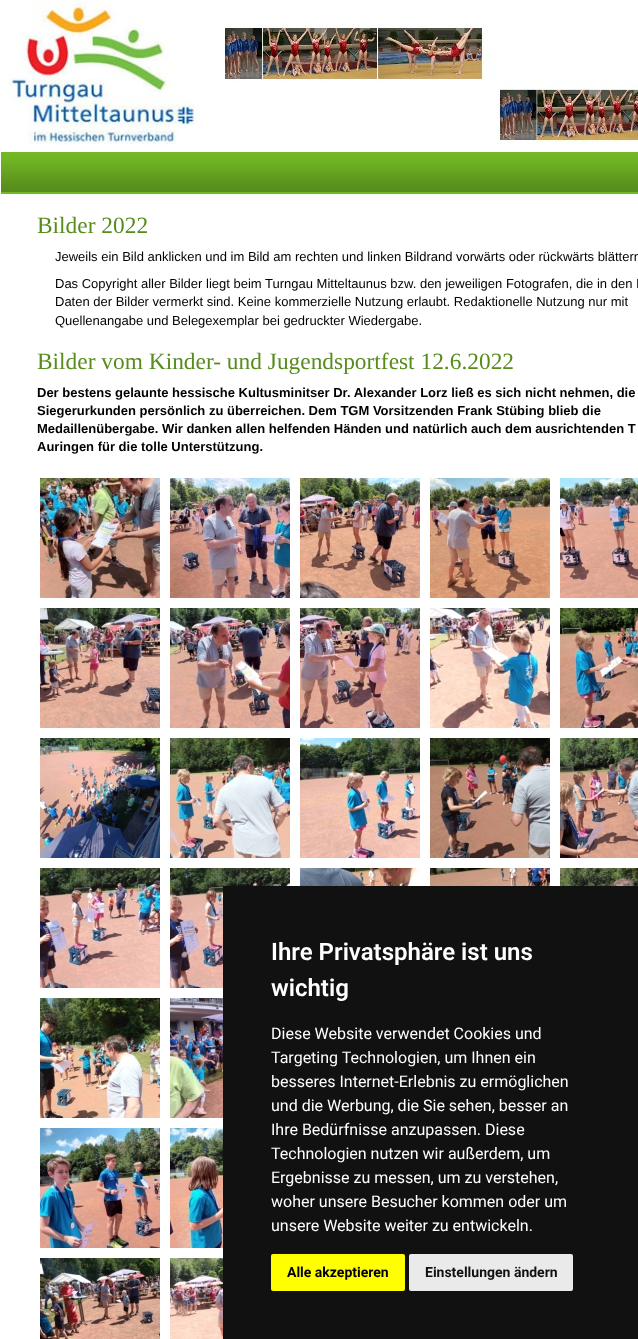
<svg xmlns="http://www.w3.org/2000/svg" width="638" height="1339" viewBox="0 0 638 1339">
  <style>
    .t1 { font: 23.4px Liberation Serif; fill: #578c1c; }
    .t2 { font: 13px Liberation Sans; fill: #000; }
    .t3 { font: bold 13px Liberation Sans; fill: #000; }
    .t4 { font: 600 24px Roboto; fill: #fff; }
    .t5 { font: 16px Roboto; fill: #fff; }
    .t6 { font: bold 14px Roboto; fill: #000; }
    .t7 { font: bold 14px Roboto; fill: #111; }
  </style>
  <rect width="100%" height="100%" fill="#fff"/>
  <image x="1" y="1" width="637" height="151" href="images/1.png"/>
  <image x="1" y="152" width="637" height="42" href="images/2.png"/>
  <text x="37" y="233" class="t1">Bilder 2022</text>
  <text x="55" y="261" class="t2">Jeweils ein Bild anklicken und im Bild am rechten und linken Bildrand vorwärts oder rückwärts blättern</text>
  <text x="55" y="288" class="t2">Das Copyright aller Bilder liegt beim Turngau Mitteltaunus bzw. den jeweiligen Fotografen, die in den I</text>
  <text x="55" y="306" class="t2">Daten der Bilder vermerkt sind. Keine kommerzielle Nutzung erlaubt. Redaktionelle Nutzung nur mit</text>
  <text x="55" y="325" class="t2">Quellenangabe und Belegexemplar bei gedruckter Wiedergabe.</text>
  <text x="37" y="369" class="t1">Bilder vom Kinder- und Jugendsportfest 12.6.2022</text>
  <text x="37" y="397" class="t3">Der bestens gelaunte hessische Kultusminitser Dr. Alexander Lorz ließ es sich nicht nehmen, die</text>
  <text x="37" y="415" class="t3">Siegerurkunden persönlich zu überreichen. Dem TGM Vorsitzenden Frank Stübing blieb die</text>
  <text x="37" y="433" class="t3">Medaillenübergabe. Wir danken allen helfenden Händen und natürlich auch dem ausrichtenden T</text>
  <text x="37" y="451" class="t3">Auringen für die tolle Unterstützung.</text>
  <image x="40" y="478" width="120" height="120" href="images/3.png"/>
  <image x="170" y="478" width="120" height="120" href="images/4.png"/>
  <image x="300" y="478" width="120" height="120" href="images/5.png"/>
  <image x="430" y="478" width="120" height="120" href="images/6.png"/>
  <image x="560" y="478" width="78" height="120" href="images/7.png"/>
  <image x="40" y="608" width="120" height="120" href="images/8.png"/>
  <image x="170" y="608" width="120" height="120" href="images/9.png"/>
  <image x="300" y="608" width="120" height="120" href="images/10.png"/>
  <image x="430" y="608" width="120" height="120" href="images/11.png"/>
  <image x="560" y="608" width="78" height="120" href="images/12.png"/>
  <image x="40" y="738" width="120" height="120" href="images/13.png"/>
  <image x="170" y="738" width="120" height="120" href="images/14.png"/>
  <image x="300" y="738" width="120" height="120" href="images/15.png"/>
  <image x="430" y="738" width="120" height="120" href="images/16.png"/>
  <image x="560" y="738" width="78" height="120" href="images/17.png"/>
  <image x="40" y="868" width="120" height="120" href="images/18.png"/>
  <image x="170" y="868" width="120" height="120" href="images/19.png"/>
  <image x="300" y="868" width="120" height="18" href="images/20.png"/>
  <image x="430" y="868" width="120" height="18" href="images/21.png"/>
  <image x="560" y="868" width="78" height="18" href="images/22.png"/>
  <image x="40" y="998" width="120" height="120" href="images/23.png"/>
  <image x="170" y="998" width="53" height="120" href="images/24.png"/>
  <image x="40" y="1128" width="120" height="120" href="images/25.png"/>
  <image x="170" y="1128" width="53" height="120" href="images/26.png"/>
  <image x="40" y="1258" width="120" height="81" href="images/27.png"/>
  <image x="170" y="1258" width="53" height="81" href="images/28.png"/>
  <rect x="223" y="886" width="415" height="453" fill="#111"/>
  <text x="271" y="960" class="t4">Ihre Privatsphäre ist uns</text>
  <text x="271" y="996" class="t4">wichtig</text>
  <text x="271" y="1039" class="t5">Diese Website verwendet Cookies und</text>
  <text x="271" y="1063" class="t5">Targeting Technologien, um Ihnen ein</text>
  <text x="271" y="1087" class="t5">besseres Internet-Erlebnis zu ermöglichen</text>
  <text x="271" y="1111" class="t5">und die Werbung, die Sie sehen, besser an</text>
  <text x="271" y="1135" class="t5">Ihre Bedürfnisse anzupassen. Diese</text>
  <text x="271" y="1159" class="t5">Technologien nutzen wir außerdem, um</text>
  <text x="271" y="1183" class="t5">Ergebnisse zu messen, um zu verstehen,</text>
  <text x="271" y="1207" class="t5">woher unsere Besucher kommen oder um</text>
  <text x="271" y="1231" class="t5">unsere Website weiter zu entwickeln.</text>
  <rect x="271" y="1254" width="134" height="37" rx="2" fill="#ff0"/>
  <text x="287" y="1277" class="t6">Alle akzeptieren</text>
  <rect x="409" y="1254" width="164" height="37" rx="2" fill="#eaeaea"/>
  <text x="425" y="1277" class="t7">Einstellungen ändern</text>
</svg>
